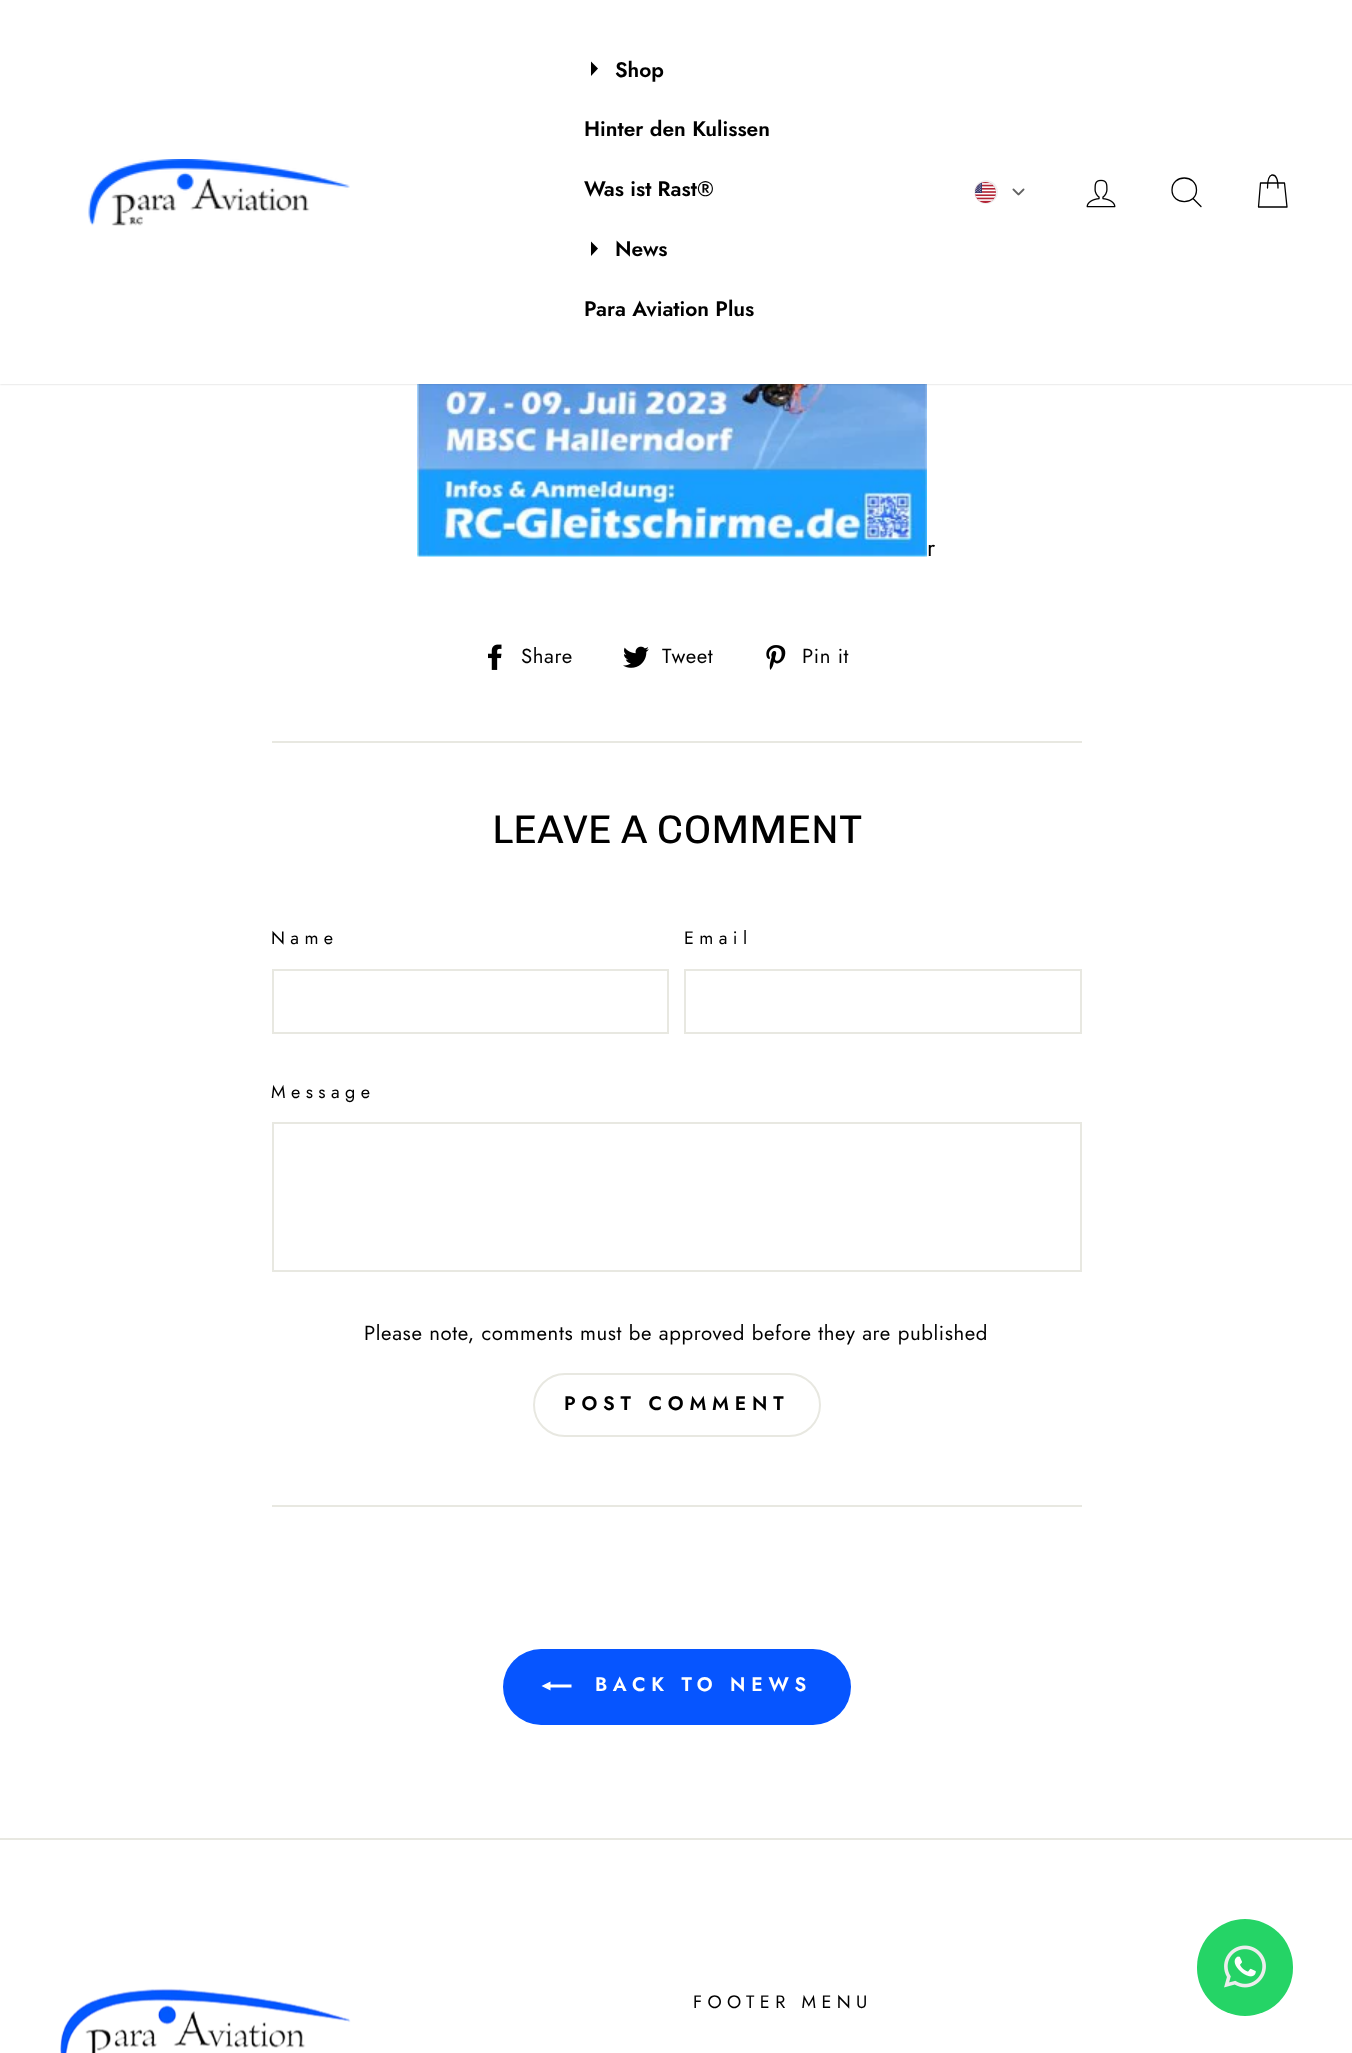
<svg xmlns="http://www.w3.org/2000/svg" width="1352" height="2053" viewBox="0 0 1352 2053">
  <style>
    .t1 { font: 600 21px Jost; fill: #000; }
    .t2 { font: 24px Jost; letter-spacing: 0.6px; fill: #000; }
    .t3 { font: 20.4px Jost; letter-spacing: 0.6px; fill: #000; }
    .t4 { font: 40px Chivo; fill: #000; }
    .t5 { font: 18px Jost; letter-spacing: 5.4px; fill: #000; }
    .t6 { font: 600 19.5px Jost; letter-spacing: 5.8px; fill: #000; }
    .t7 { font: 600 19.5px Jost; letter-spacing: 5.8px; fill: #fff; }
  </style>
  <rect width="100%" height="100%" fill="#fff"/>
  <image x="417" y="384" width="510" height="173" href="images/5.png"/>
  <rect x="0" y="0" width="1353" height="384" fill="#00000033" filter="blur(1px)"/>
  <rect x="0" y="0" width="1352" height="384" fill="#fff"/>
  <image x="88" y="159" width="262" height="67" href="images/1.png"/>
  <path d="M591 76L598 68.5L591 61.5Z" fill="#000" fill-rule="evenodd"/>
  <text x="615" y="77" class="t1">Shop</text>
  <text x="584" y="136" class="t1">Hinter den Kulissen</text>
  <text x="584" y="196" class="t1">Was ist Rast®</text>
  <path d="M591 256L598 248.5L591 241.5Z" fill="#000" fill-rule="evenodd"/>
  <text x="615" y="256" class="t1">News</text>
  <text x="584" y="316" class="t1">Para Aviation Plus</text>
  <circle cx="986" cy="192" r="11" fill="none" stroke="#f0f1f2" stroke-width="2"/>
  <image x="975" y="182" width="21" height="21" href="images/2.png"/>
  <image x="1012" y="188" width="13" height="8" href="images/3.png"/>
  <image x="1086" y="179" width="30" height="29" href="images/4.png"/>
  <path d="M1196.5 190C1196.5 205.5 1172 205.5 1172 190C1172 174 1196.5 174 1196.5 190ZM1201 206.5L1193 198.5" fill="none" stroke="#000" stroke-width="1.3" stroke-linecap="round" stroke-linejoin="round"/>
  <path d="M1267.5 188C1267.5 177.5 1269.5 175 1272.5 175C1275.5 175 1278 177.5 1278 188M1260.5 183H1284.5L1287 207H1258.5Z" fill="none" stroke="#000" stroke-width="1.3" stroke-linecap="round" stroke-linejoin="round"/>
  <text x="927" y="556" class="t2">r</text>
  <image x="488" y="644" width="14" height="26" href="images/6.png"/>
  <text x="521" y="663" class="t3">Share</text>
  <image x="623" y="646" width="26" height="22" href="images/7.png"/>
  <text x="662" y="663" class="t3">Tweet</text>
  <image x="766" y="645" width="20" height="25" href="images/8.png"/>
  <text x="802" y="663" class="t3">Pin it</text>
  <rect x="272" y="741" width="810" height="2" fill="#e8e8e1"/>
  <text x="492" y="843" class="t4">LEAVE A COMMENT</text>
  <text x="271" y="944" class="t5">Name</text>
  <rect x="273" y="970" width="395" height="63" fill="none" stroke="#e8e8e1" stroke-width="2"/>
  <text x="684" y="944" class="t5">Email</text>
  <rect x="685" y="970" width="396" height="63" fill="none" stroke="#e8e8e1" stroke-width="2"/>
  <text x="271" y="1098" class="t5">Message</text>
  <rect x="273" y="1123" width="808" height="148" fill="none" stroke="#e8e8e1" stroke-width="2"/>
  <text x="364" y="1340" class="t3">Please note, comments must be approved before they are published</text>
  <rect x="534" y="1374" width="286" height="62" rx="31" fill="none" stroke="#e8e8e1" stroke-width="2"/>
  <text x="564" y="1410" class="t6">POST COMMENT</text>
  <rect x="272" y="1505" width="810" height="2" fill="#e8e8e1"/>
  <rect x="503" y="1649" width="348" height="76" rx="38" fill="#0655ff"/>
  <path d="M571.5 1684.5V1687.5H550.5V1690.5L541.5 1686L550.5 1681.5V1684.5Z" fill="#fff"/>
  <text x="595" y="1691" class="t7">BACK TO NEWS</text>
  <rect x="0" y="1838" width="1352" height="2" fill="#e8e8e1"/>
  <image x="60" y="1988" width="291" height="65" href="images/9.png"/>
  <text x="693" y="2008" class="t5">FOOTER MENU</text>
  <rect x="1197" y="1919" width="96" height="97" rx="48" fill="#25d466"/>
  <image x="1224" y="1945" width="42" height="43" href="images/10.png"/>
</svg>
